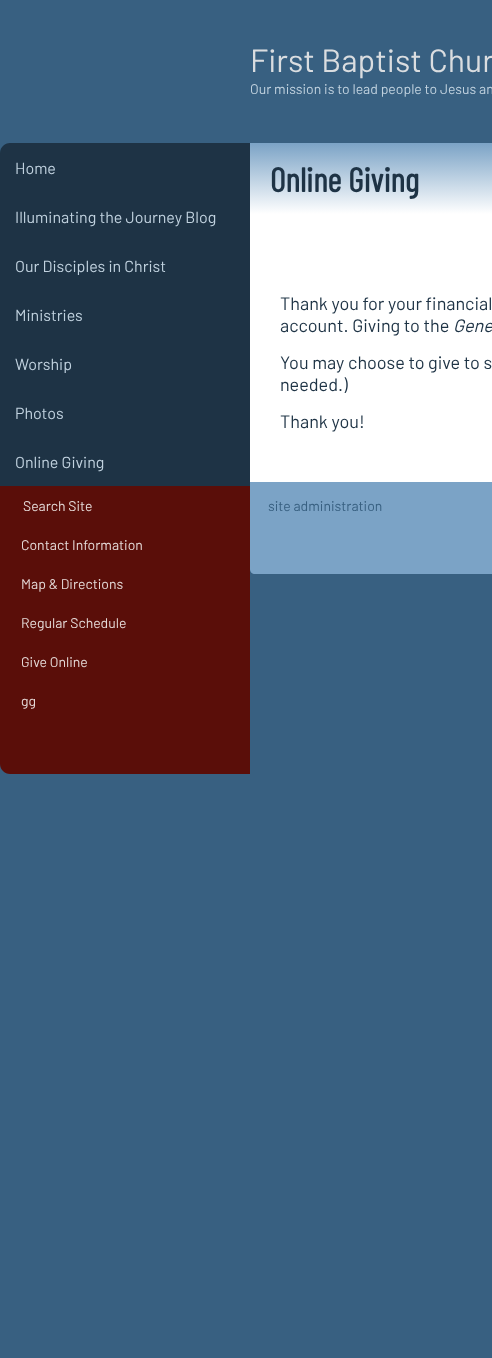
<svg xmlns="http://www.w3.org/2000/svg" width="492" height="1358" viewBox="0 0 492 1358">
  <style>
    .t1 { font: 32px Barlow; fill: #dadde0; }
    .t2 { font: 14px Barlow; fill: #c1d2df; }
    .t3 { font: 16px Barlow; fill: #c1d2df; }
    .t4 { font: 14px Barlow; fill: #e5dad8; }
    .t5 { font: bold 34px Barlow Condensed; fill: #1e3345; }
    .t6 { font: 18px Barlow; fill: #1e3345; }
    .t7 { font: italic 18px Barlow; fill: #1e3345; }
    .t8 { font: 14px Barlow; fill: #386081; }
  </style>
  <defs>
    <linearGradient id="g1" gradientUnits="userSpaceOnUse" x1="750" y1="143" x2="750" y2="214"><stop offset="0" stop-color="#7ba3c6"/><stop offset="1" stop-color="#fff"/></linearGradient>
  </defs>
  <rect width="100%" height="100%" fill="#386081"/>
  <text x="250" y="72" class="t1">First Baptist Chur</text>
  <text x="250" y="94" class="t2">Our mission is to lead people to Jesus an</text>
  <path d="M10 143H250V192H0V153C0 147.5 4.5 143 10 143Z" fill="#1e3345"/>
  <text x="15" y="174" class="t3">Home</text>
  <rect x="0" y="192" width="250" height="294" fill="#1e3345"/>
  <text x="15" y="223" class="t3">Illuminating the Journey Blog</text>
  <text x="15" y="272" class="t3">Our Disciples in Christ</text>
  <text x="15" y="321" class="t3">Ministries</text>
  <text x="15" y="370" class="t3">Worship</text>
  <text x="15" y="419" class="t3">Photos</text>
  <text x="15" y="468" class="t3">Online Giving</text>
  <rect x="0" y="486" width="250" height="234" fill="#5a0e09"/>
  <text x="23" y="511" class="t4">Search Site</text>
  <text x="21" y="550" class="t4">Contact Information</text>
  <text x="21" y="589" class="t4">Map &amp; Directions</text>
  <text x="21" y="628" class="t4">Regular Schedule</text>
  <text x="21" y="667" class="t4">Give Online</text>
  <text x="21" y="706" class="t4">gg</text>
  <path d="M0 720H250V774H10C4.5 774 0 769.5 0 764Z" fill="#5a0e09"/>
  <rect x="250" y="143" width="242" height="71" fill="url(#g1)"/>
  <text x="270" y="192" class="t5">Online Giving</text>
  <rect x="250" y="214" width="242" height="268" fill="#fff"/>
  <text x="280" y="310" class="t6">Thank you for your financial</text>
  <text x="280" y="332" class="t6">account. Giving to the</text>
  <text x="453" y="332" class="t7">Gene</text>
  <text x="280" y="369" class="t6">You may choose to give to s</text>
  <text x="280" y="391" class="t6">needed.)</text>
  <text x="280" y="428" class="t6">Thank you!</text>
  <path d="M250 482H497V569C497 572 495 574 492 574H255C252 574 250 572 250 569Z" fill="#7ba3c6"/>
  <text x="268" y="511" class="t8">site administration</text>
</svg>
